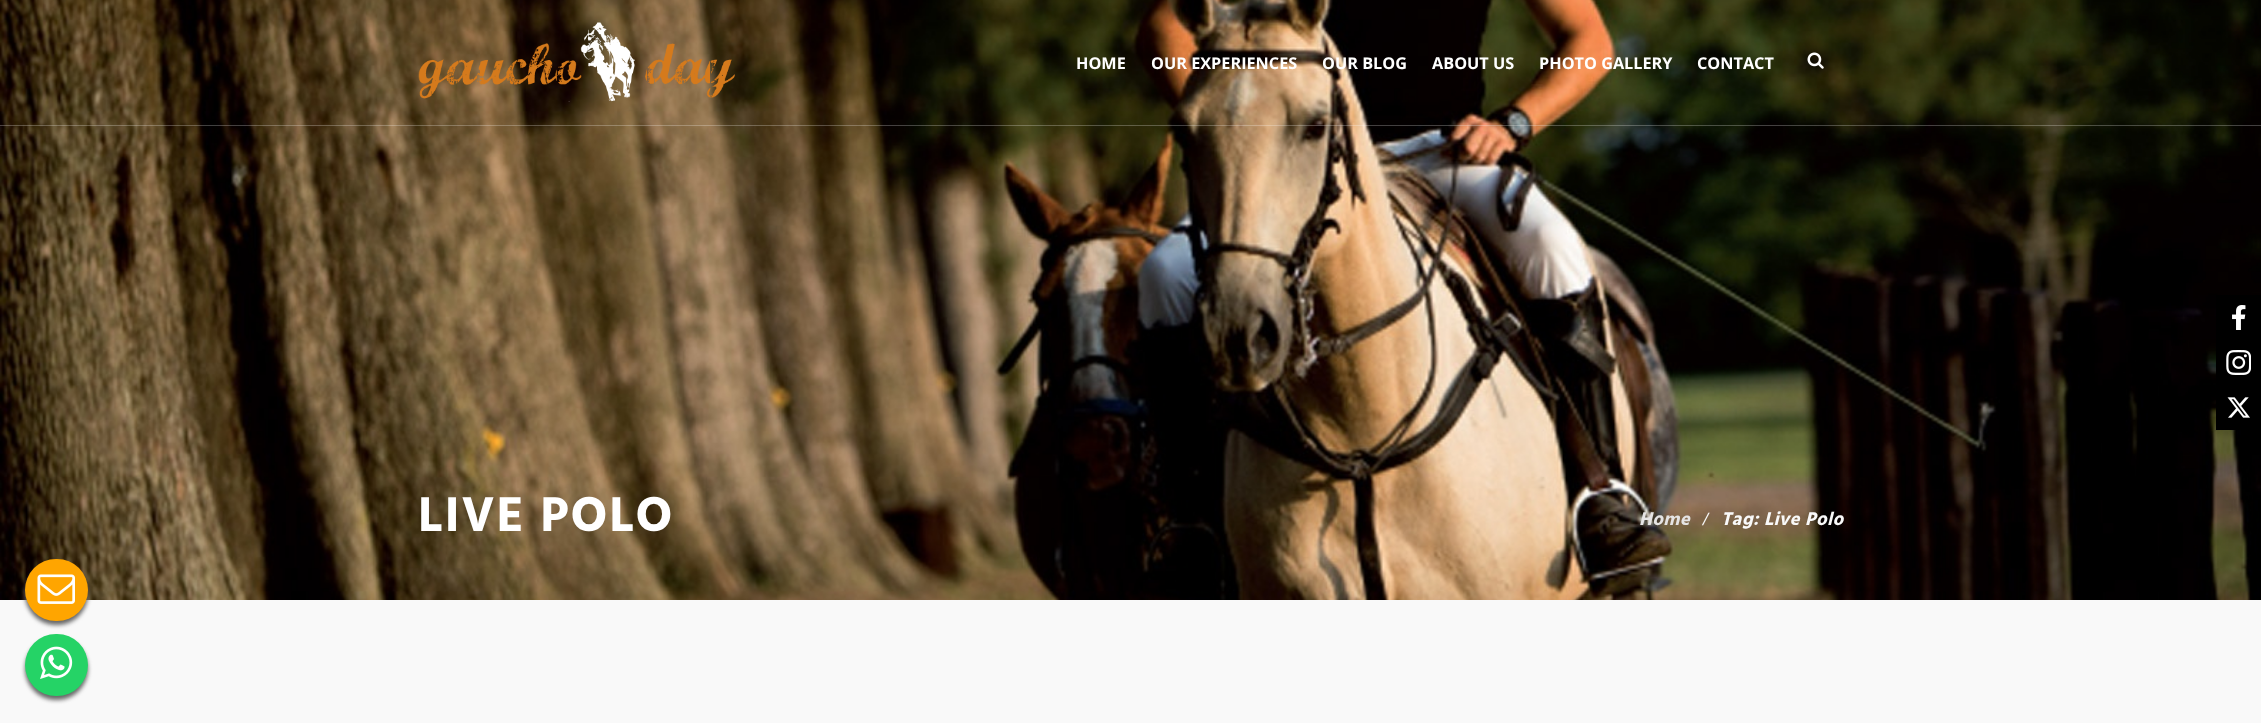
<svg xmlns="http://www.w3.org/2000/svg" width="2261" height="723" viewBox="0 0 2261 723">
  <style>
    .t1 { font: bold 16.25px Open Sans; fill: #fff; }
    .t2 { font: bold 50px Hind; letter-spacing: 2px; fill: #fff; }
    .t3 { font: italic bold 18.75px Hind; letter-spacing: 0.4px; fill: #e5e4e4; }
    .t4 { font: italic bold 18.75px Liberation Serif; letter-spacing: 0.4px; fill: #f9f9f9; }
    .t5 { font: italic bold 18.75px Hind; letter-spacing: 0.4px; fill: #f9f9f9; }
  </style>
  <rect width="100%" height="100%" fill="#f9f9f9"/>
  <image x="0" y="0" width="2261" height="600" href="images/3.png"/>
  <rect x="0" y="125" width="2261" height="1" fill="#ffffff40"/>
  <image x="418" y="22" width="317" height="80" href="images/1.png"/>
  <text x="1076" y="69" class="t1">HOME</text>
  <text x="1151" y="69" class="t1">OUR EXPERIENCES</text>
  <text x="1322" y="69" class="t1">OUR BLOG</text>
  <text x="1432" y="69" class="t1">ABOUT US</text>
  <text x="1539" y="69" class="t1">PHOTO GALLERY</text>
  <text x="1697" y="69" class="t1">CONTACT</text>
  <image x="1807" y="52" width="17" height="17" href="images/2.png"/>
  <text x="418" y="531" class="t2">LIVE POLO</text>
  <text x="1639" y="525" class="t3">Home</text>
  <text x="1703" y="525" class="t4">/</text>
  <text x="1721" y="525" class="t5">Tag: Live Polo</text>
  <rect x="2216" y="295" width="45" height="135" fill="#000"/>
  <image x="2232" y="305" width="14" height="25" href="images/4.png"/>
  <image x="2226" y="350" width="25" height="25" href="images/5.png"/>
  <image x="2227" y="397" width="23" height="21" href="images/6.png"/>
  <rect x="25" y="563" width="63" height="62" rx="31" fill="#666" filter="blur(2px)"/>
  <rect x="25" y="559" width="63" height="62" rx="31" fill="#ffa500"/>
  <image x="37" y="574" width="38" height="30" href="images/7.png"/>
  <rect x="25" y="638" width="63" height="62" rx="31" fill="#666" filter="blur(2px)"/>
  <rect x="25" y="634" width="63" height="62" rx="31" fill="#25d366"/>
  <image x="40" y="646" width="33" height="33" href="images/8.png"/>
</svg>
